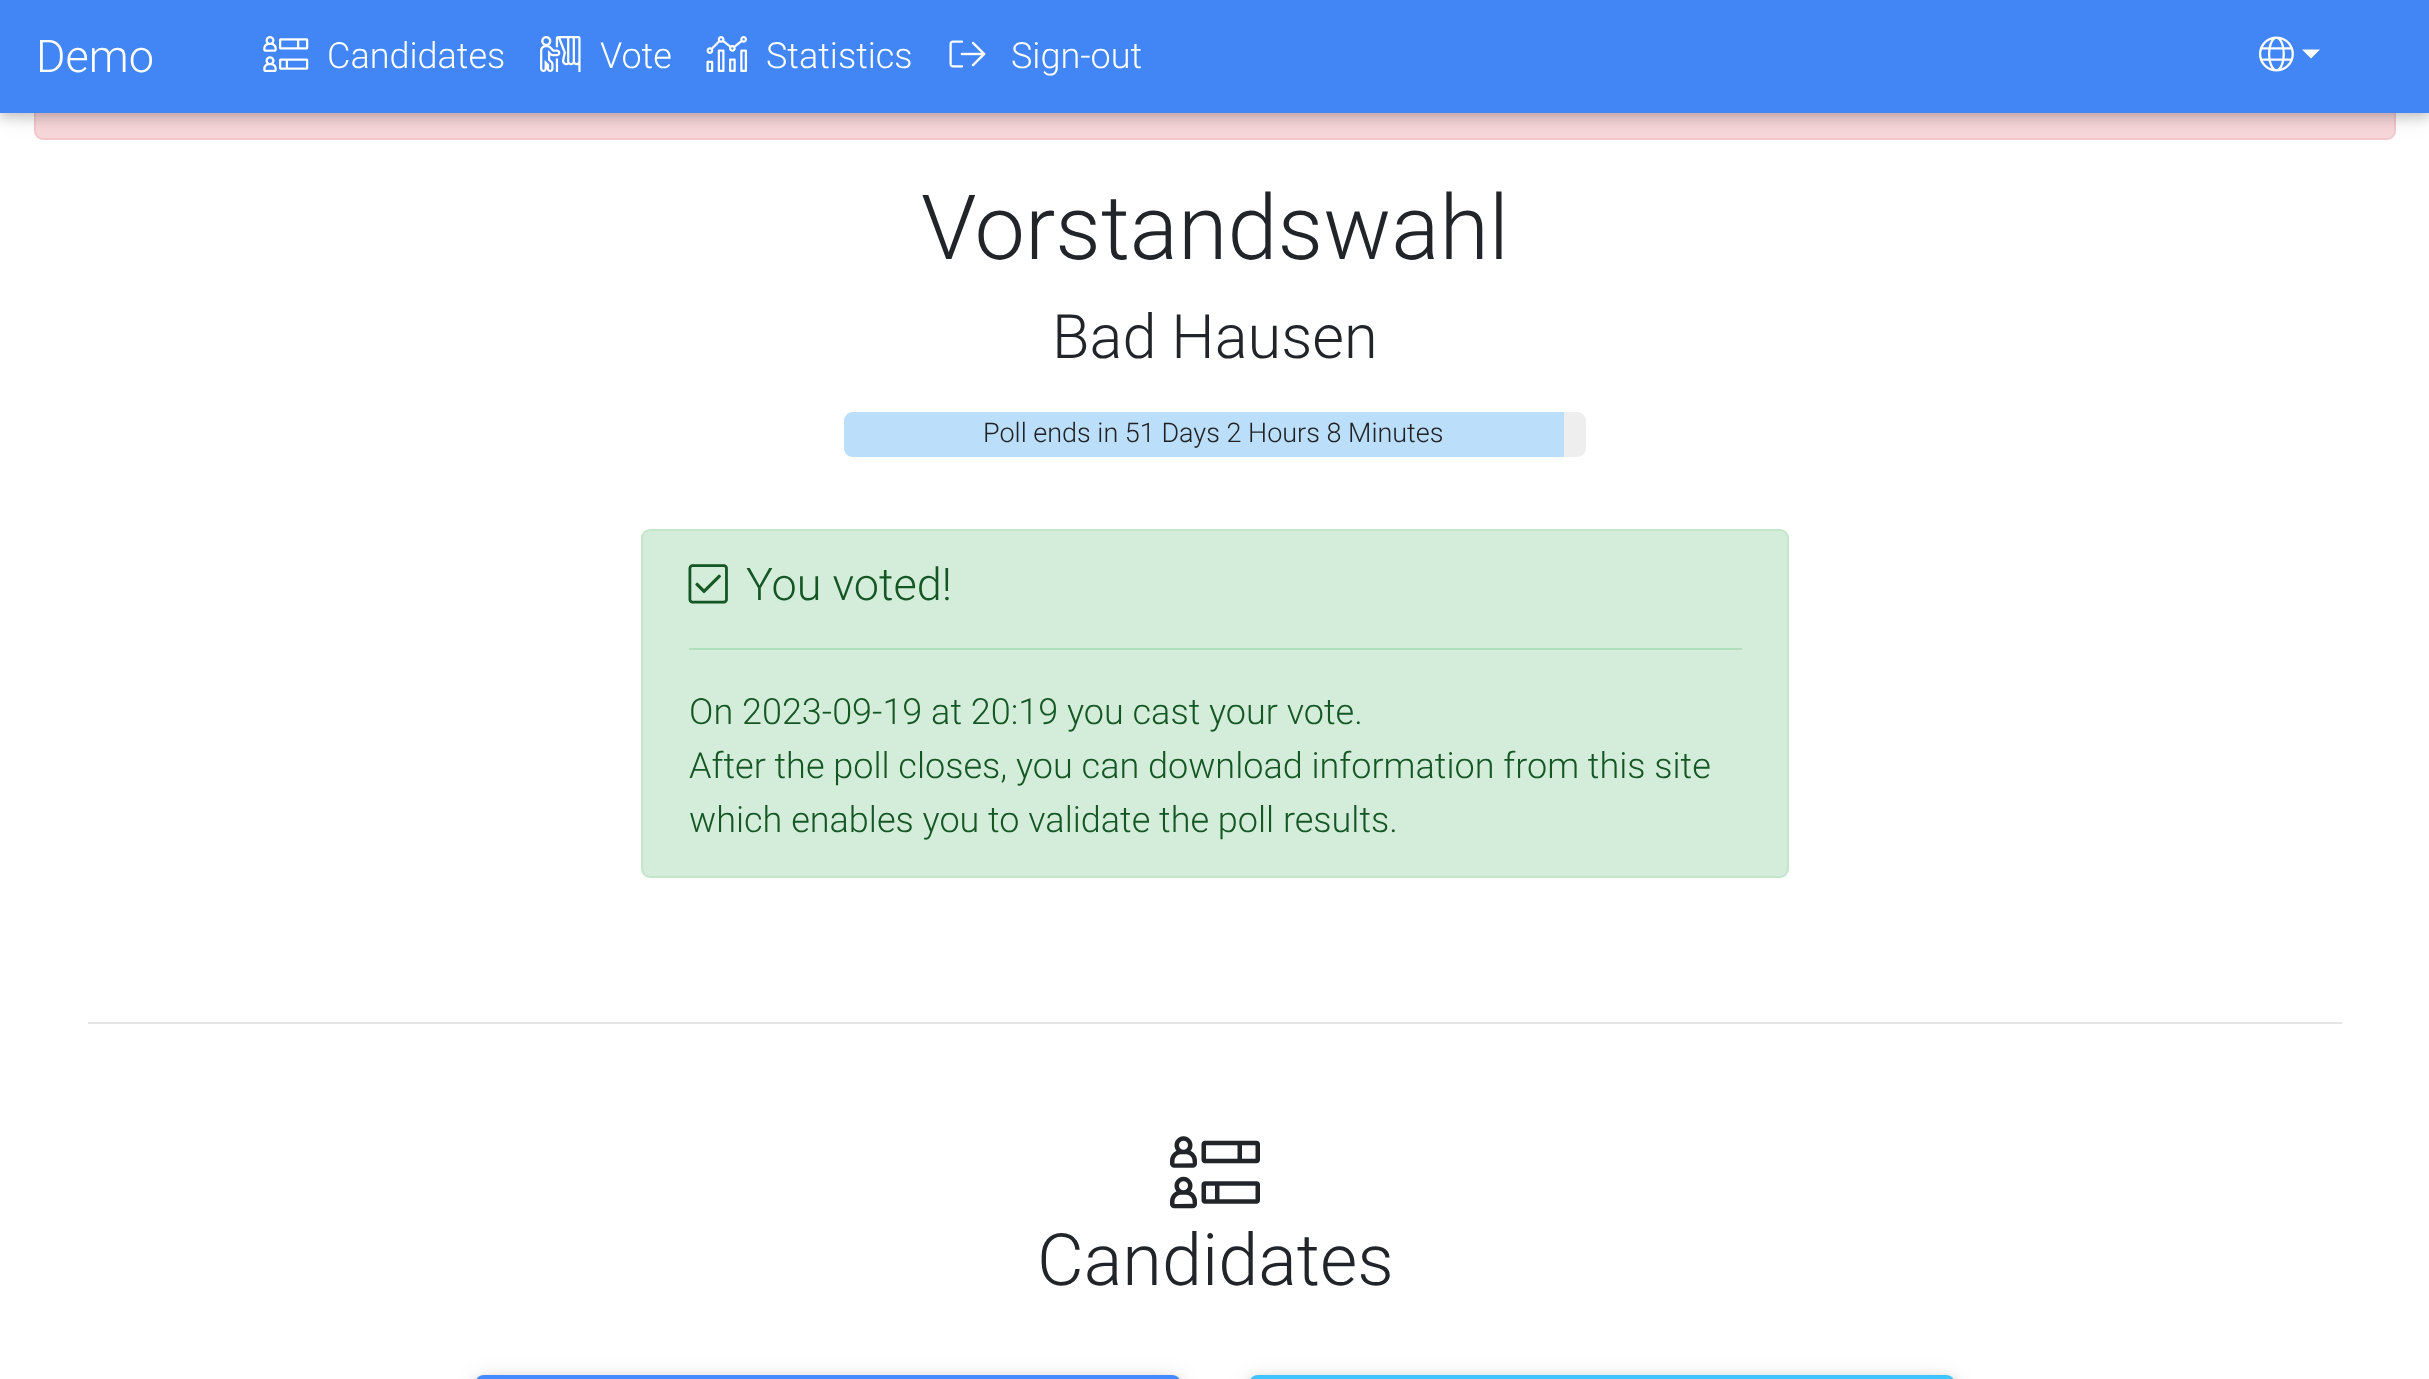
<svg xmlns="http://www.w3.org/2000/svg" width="2429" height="1379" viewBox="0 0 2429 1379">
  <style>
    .t1 { font: 300 45px Roboto; fill: #fff; }
    .t2 { font: 300 36px Roboto; fill: #fff; }
    .t3 { font: 300 90px Roboto; fill: #212529; }
    .t4 { font: 300 61.25px Roboto; fill: #212529; }
    .t5 { font: 300 27px Roboto; fill: #212121; }
    .t6 { font: 300 45px Roboto; fill: #155724; }
    .t7 { font: 300 36px Roboto; fill: #155724; }
    .t8 { font: 300 72px Roboto; fill: #212529; }
  </style>
  <rect width="100%" height="100%" fill="#fff"/>
  <rect x="35" y="-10" width="2360" height="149" rx="8" fill="#f8d7da" stroke="#f5c6cb" stroke-width="2"/>
  <rect x="0" y="5" width="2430" height="112" fill="#0000001f" filter="blur(11px)"/>
  <rect x="0" y="5" width="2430" height="112" fill="#00000029" filter="blur(5.5px)"/>
  <rect x="0" y="0" width="2429" height="113" fill="#4285f4"/>
  <text x="36" y="72" class="t1">Demo</text>
  <image x="263" y="36" width="46" height="36" href="images/1.png"/>
  <text x="327" y="68" class="t2">Candidates</text>
  <image x="540" y="36" width="41" height="36" href="images/2.png"/>
  <text x="600" y="68" class="t2">Vote</text>
  <image x="706" y="36" width="41" height="36" href="images/3.png"/>
  <text x="766" y="68" class="t2">Statistics</text>
  <image x="949" y="40" width="37" height="28" href="images/4.png"/>
  <text x="1011" y="68" class="t2">Sign-out</text>
  <image x="2259" y="36" width="35" height="36" href="images/5.png"/>
  <path d="M2302 49.5H2320L2311 58.5Z" fill="#fff"/>
  <text x="921" y="259" class="t3">Vorstandswahl</text>
  <text x="1052" y="358" class="t4">Bad Hausen</text>
  <rect x="844" y="412" width="742" height="45" rx="9" fill="#eee"/>
  <path d="M853 412H1564V457H853C848 457 844 453 844 448V421C844 416 848 412 853 412Z" fill="#bbdefb"/>
  <text x="983" y="442" class="t5">Poll ends in 51 Days 2 Hours 8 Minutes</text>
  <rect x="642" y="530" width="1146" height="347" rx="8" fill="#d4edda" stroke="#c3e6cb" stroke-width="2"/>
  <image x="688" y="564" width="40" height="40" href="images/6.png"/>
  <text x="746" y="600" class="t6">You voted!</text>
  <rect x="689" y="648" width="1053" height="2" fill="#b1dfbb"/>
  <text x="689" y="724" class="t7">On 2023-09-19 at 20:19 you cast your vote.</text>
  <text x="689" y="778" class="t7">After the poll closes, you can download information from this site</text>
  <text x="689" y="832" class="t7">which enables you to validate the poll results.</text>
  <rect x="88" y="1022" width="2254" height="2" fill="#e6e6e6"/>
  <image x="1170" y="1136" width="90" height="73" href="images/7.png"/>
  <text x="1037" y="1285" class="t8">Candidates</text>
  <rect x="475" y="1379" width="706" height="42" rx="9" fill="#0000001f" filter="blur(11px)"/>
  <rect x="475" y="1379" width="706" height="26" rx="9" fill="#00000029" filter="blur(5.5px)"/>
  <path d="M484 1375H1172C1177 1375 1181 1379 1181 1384V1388H475V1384C475 1379 479 1375 484 1375Z" fill="#448aff"/>
  <rect x="1249" y="1379" width="706" height="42" rx="9" fill="#0000001f" filter="blur(11px)"/>
  <rect x="1249" y="1379" width="706" height="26" rx="9" fill="#00000029" filter="blur(5.5px)"/>
  <path d="M1258 1375H1946C1951 1375 1955 1379 1955 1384V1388H1249V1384C1249 1379 1253 1375 1258 1375Z" fill="#40c4ff"/>
</svg>
